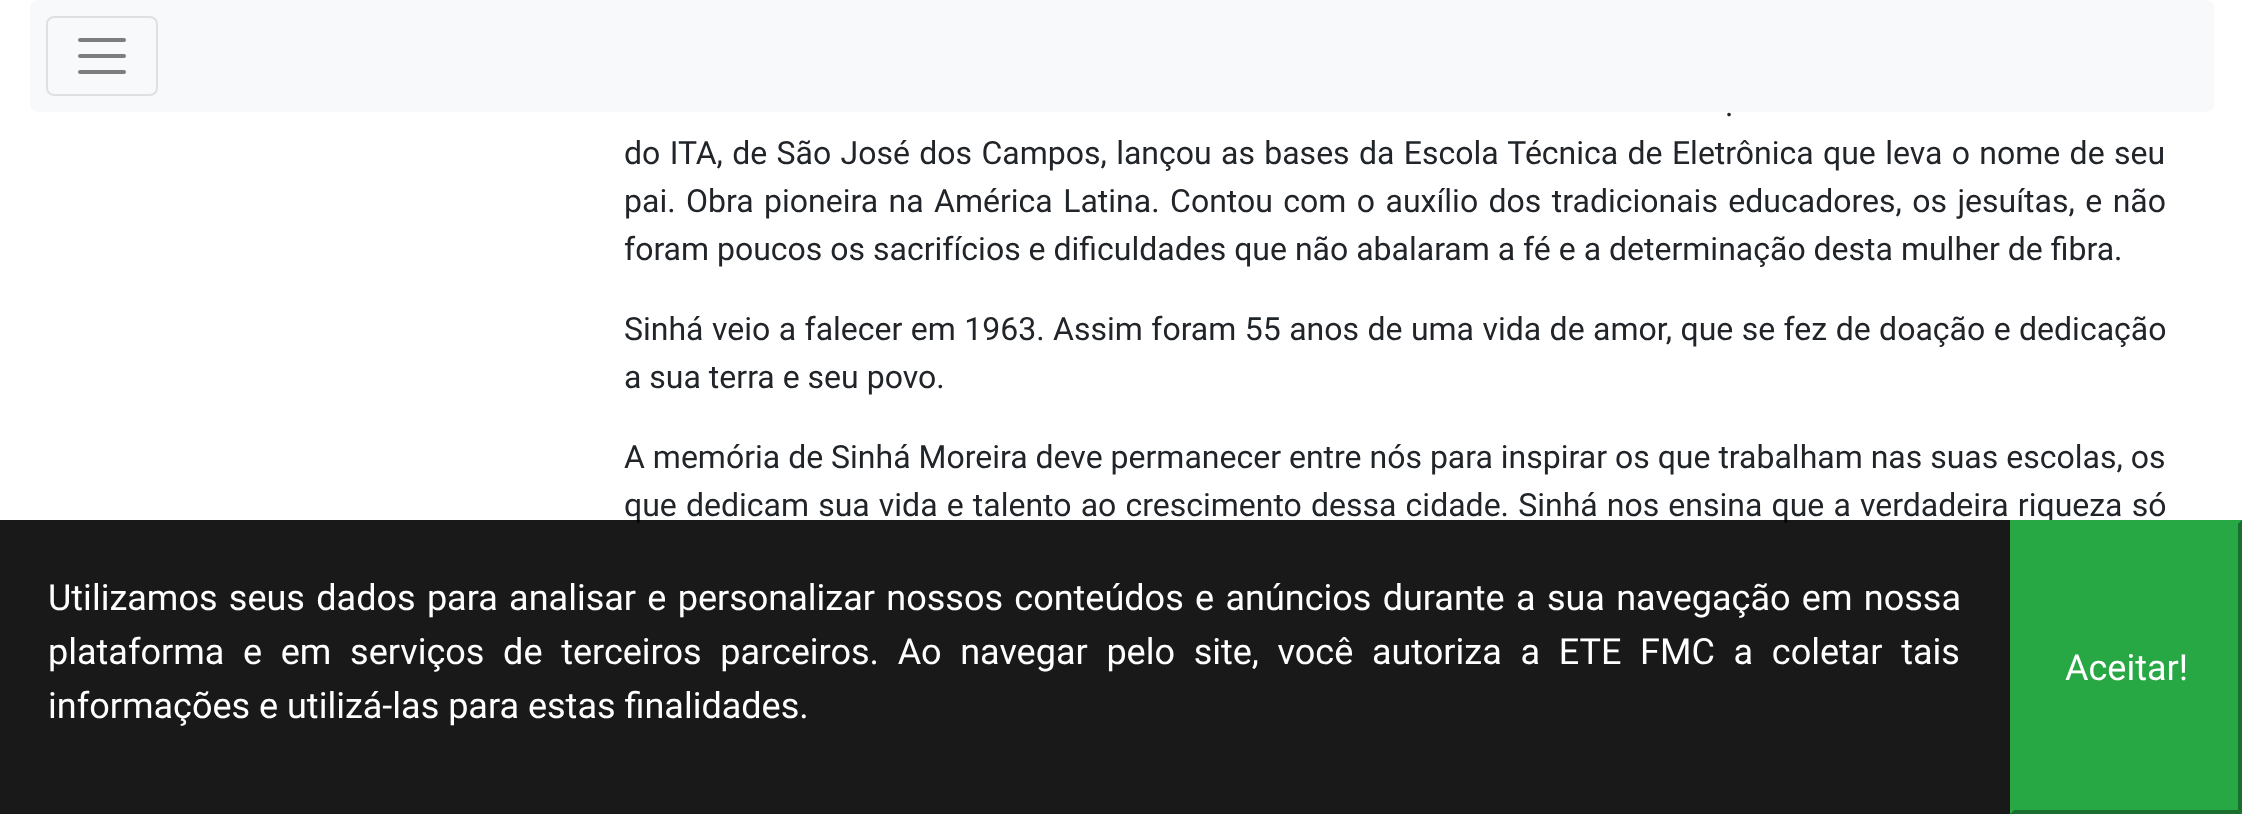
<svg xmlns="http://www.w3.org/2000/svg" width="2243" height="814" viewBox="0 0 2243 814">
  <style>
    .t1 { font: 32px Roboto; fill: #212529; }
    .t2 { font: 36px Roboto; fill: #fff; }
  </style>
  <rect width="100%" height="100%" fill="#fff"/>
  <rect x="30" y="0" width="2184" height="112" rx="8" fill="#f8f9fa"/>
  <rect x="47" y="17" width="110" height="78" rx="7" fill="none" stroke="#dfe0e1" stroke-width="2"/>
  <path d="M80 40H124M80 56H124M80 72H124" fill="none" stroke="#7c7d7d" stroke-width="4" stroke-linecap="round"/>
  <text x="1725" y="116" word-spacing="2" class="t1">.</text>
  <text x="624" y="164" word-spacing="1.4" class="t1">do ITA, de São José dos Campos, lançou as bases da Escola Técnica de Eletrônica que leva o nome de seu</text>
  <text x="624" y="212" word-spacing="2.5" class="t1">pai. Obra pioneira na América Latina. Contou com o auxílio dos tradicionais educadores, os jesuítas, e não</text>
  <text x="624" y="260" class="t1">foram poucos os sacrifícios e dificuldades que não abalaram a fé e a determinação desta mulher de fibra.</text>
  <text x="624" y="340" word-spacing="0.5" class="t1">Sinhá veio a falecer em 1963. Assim foram 55 anos de uma vida de amor, que se fez de doação e dedicação</text>
  <text x="624" y="388" class="t1">a sua terra e seu povo.</text>
  <text x="624" y="468" class="t1">A memória de Sinhá Moreira deve permanecer entre nós para inspirar os que trabalham nas suas escolas, os</text>
  <text x="624" y="516" word-spacing="1.2" class="t1">que dedicam sua vida e talento ao crescimento dessa cidade. Sinhá nos ensina que a verdadeira riqueza só</text>
  <rect x="0" y="520" width="2010" height="294" fill="#000000e6"/>
  <text x="48" y="610" word-spacing="2.4" class="t2">Utilizamos seus dados para analisar e personalizar nossos conteúdos e anúncios durante a sua navegação em nossa</text>
  <text x="48" y="664" word-spacing="9.75" class="t2">plataforma e em serviços de terceiros parceiros. Ao navegar pelo site, você autoriza a ETE FMC a coletar tais</text>
  <text x="48" y="718" class="t2">informações e utilizá-las para estas finalidades.</text>
  <rect x="2010" y="520" width="232" height="294" fill="#28a745"/>
  <path d="M2242 520V814L2238 810V524Z" fill="#1b6f2e"/>
  <path d="M2242 814H2010L2014 810H2238Z" fill="#1b6f2e"/>
  <path d="M2010 814V520L2014 524V810Z" fill="#28a745"/>
  <text x="2065" y="680" class="t2">Aceitar!</text>
</svg>
